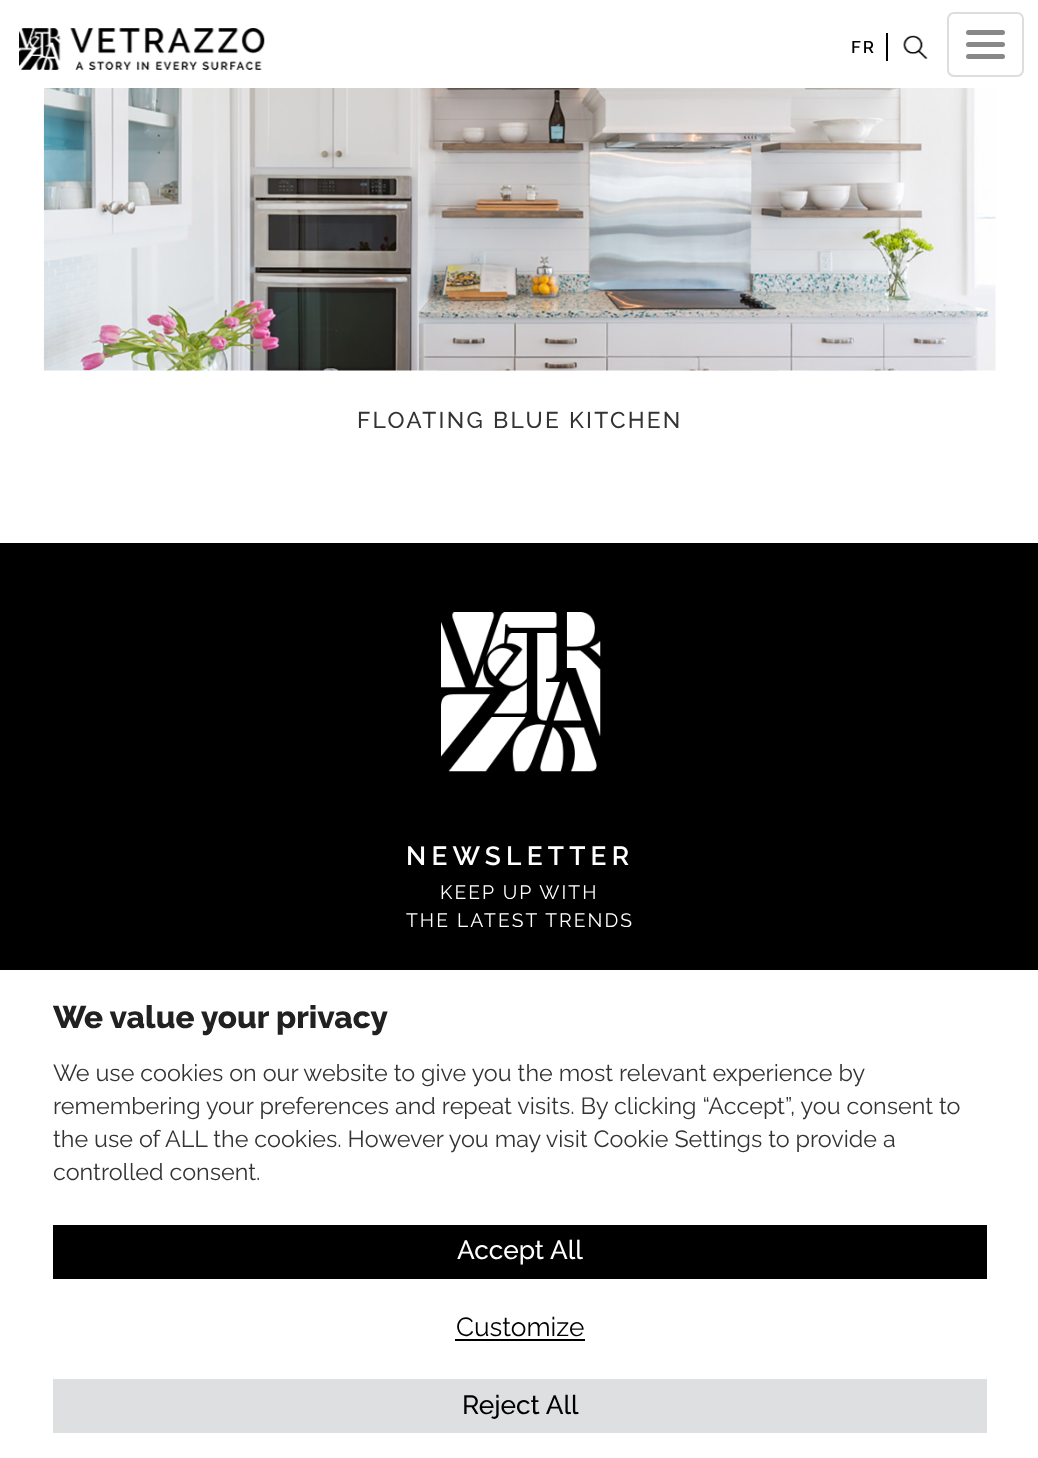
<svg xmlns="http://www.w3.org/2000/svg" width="1038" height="1458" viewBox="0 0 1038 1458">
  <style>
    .t1 { font: 600 17px Raleway; letter-spacing: 2px; fill: #000; }
    .t2 { font: 500 22.75px Raleway; letter-spacing: 2.25px; fill: #333; }
    .t3 { font: 600 26.25px Raleway; letter-spacing: 5.25px; fill: #fff; }
    .t4 { font: 19.25px Raleway; letter-spacing: 2.1px; fill: #fff; }
    .t5 { font: 800 31.5px Raleway; fill: #212121; }
    .t6 { font: 23.35px Raleway; fill: #333; }
    .t7 { font: 500 26.25px Raleway; fill: #fff; }
    .t8 { font: 26.25px Raleway; fill: #000; }
    .t9 { font: 500 26.25px Raleway; fill: #000; }
  </style>
  <rect width="100%" height="100%" fill="#fff"/>
  <image x="19" y="28" width="246" height="42" href="images/1.png"/>
  <text x="851" y="53" class="t1">FR</text>
  <rect x="886" y="33" width="2" height="28" fill="#000"/>
  <image x="903" y="35" width="25" height="24" href="images/2.png"/>
  <rect x="948" y="13" width="75" height="63" rx="6" fill="none" stroke="#ddd" stroke-width="2"/>
  <rect x="966" y="30" width="39" height="5" rx="2.5" fill="#888"/>
  <rect x="966" y="42" width="39" height="5" rx="2.5" fill="#888"/>
  <rect x="966" y="54" width="39" height="5" rx="2.5" fill="#888"/>
  <image x="43" y="88" width="953" height="283" href="images/3.png"/>
  <text x="357" y="428" class="t2">FLOATING BLUE KITCHEN</text>
  <rect x="0" y="543" width="1038" height="427" fill="#000"/>
  <image x="441" y="612" width="160" height="160" href="images/4.png"/>
  <text x="406" y="865" class="t3">NEWSLETTER</text>
  <text x="440" y="899" class="t4">KEEP UP WITH</text>
  <text x="406" y="927" class="t4">THE LATEST TRENDS</text>
  <text x="53" y="1028" class="t5">We value your privacy</text>
  <text x="53" y="1081" class="t6">We use cookies on our website to give you the most relevant experience by</text>
  <text x="53" y="1114" class="t6">remembering your preferences and repeat visits. By clicking “Accept”, you consent to</text>
  <text x="53" y="1147" class="t6">the use of ALL the cookies. However you may visit Cookie Settings to provide a</text>
  <text x="53" y="1180" class="t6">controlled consent.</text>
  <rect x="53" y="1225" width="934" height="54" fill="#000"/>
  <text x="457" y="1259" class="t7">Accept All</text>
  <text x="456" y="1336" class="t8">Customize</text>
  <rect x="455" y="1339" width="130" height="2" fill="#000"/>
  <rect x="53" y="1379" width="934" height="54" fill="#dedfe0"/>
  <text x="462" y="1414" class="t9">Reject All</text>
</svg>
